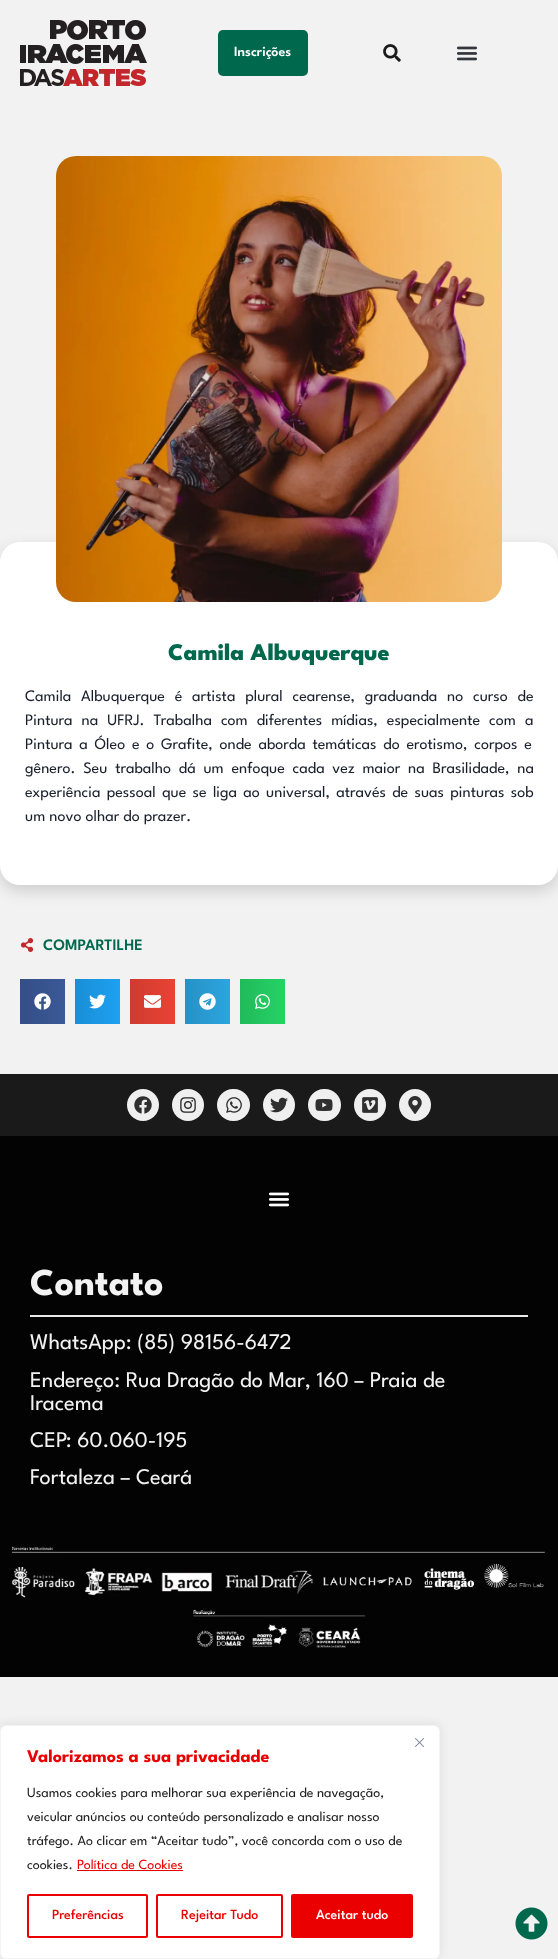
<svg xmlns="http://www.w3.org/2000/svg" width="558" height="1959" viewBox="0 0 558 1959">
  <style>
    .t1 { font: 600 14px League Spartan; fill: #fff; }
    .t2 { font: 800 24px League Spartan; fill: #00684d; }
    .t3 { font: 16px League Spartan; fill: #1a202c; }
    .t4 { font: 600 16px League Spartan; fill: #00684d; }
    .t5 { font: bold 38px League Spartan; fill: #f2f2f2; }
    .t6 { font: 22.4px League Spartan; fill: #f2f2f2; }
    .t7 { font: bold 18px League Spartan; fill: #eb0000; }
    .t8 { font: 14px League Spartan; fill: #212121; }
    .t9 { font: 14px League Spartan; fill: #eb0000; }
    .t10 { font: 500 14px League Spartan; fill: #eb0000; }
    .t11 { font: 500 14px League Spartan; fill: #fff; }
  </style>
  <defs>
    <linearGradient id="g1" gradientUnits="userSpaceOnUse" x1="20" y1="1002" x2="65" y2="1002"><stop offset="0" stop-color="#344e86"/><stop offset="1" stop-color="#3b5998"/></linearGradient>
    <linearGradient id="g2" gradientUnits="userSpaceOnUse" x1="75" y1="1002" x2="120" y2="1002"><stop offset="0" stop-color="#1a8ed5"/><stop offset="1" stop-color="#1da1f2"/></linearGradient>
    <linearGradient id="g3" gradientUnits="userSpaceOnUse" x1="130" y1="1002" x2="175" y2="1002"><stop offset="0" stop-color="#ce3b2f"/><stop offset="1" stop-color="#ea4335"/></linearGradient>
    <linearGradient id="g4" gradientUnits="userSpaceOnUse" x1="185" y1="1002" x2="230" y2="1002"><stop offset="0" stop-color="#2791c5"/><stop offset="1" stop-color="#2ca5e0"/></linearGradient>
    <linearGradient id="g5" gradientUnits="userSpaceOnUse" x1="240" y1="1002" x2="285" y2="1002"><stop offset="0" stop-color="#21ba5a"/><stop offset="1" stop-color="#25d366"/></linearGradient>
  </defs>
  <rect width="100%" height="100%" fill="#f2f2f2"/>
  <image x="20" y="20" width="127" height="66" href="images/1.png"/>
  <rect x="218" y="30" width="90" height="46" rx="5" fill="#00684d"/>
  <text x="234" y="56" class="t1">Inscrições</text>
  <image x="383" y="44" width="18" height="18" href="images/2.png"/>
  <image x="456" y="46" width="22" height="15" href="images/3.png"/>
  <rect x="0" y="548" width="558" height="343" rx="20" fill="#00000026" filter="blur(7.5px)"/>
  <rect x="0" y="542" width="558" height="343" rx="20" fill="#fff"/>
  <image x="56" y="156" width="446" height="446" href="images/4.png"/>
  <text x="168" y="660" class="t2">Camila Albuquerque</text>
  <text x="25" y="701" word-spacing="5.75" class="t3">Camila Albuquerque é artista plural cearense, graduanda no curso de</text>
  <text x="25" y="725" word-spacing="5" class="t3">Pintura na UFRJ. Trabalha com diferentes mídias, especialmente com a</text>
  <text x="25" y="749" word-spacing="2.75" class="t3">Pintura a Óleo e o Grafite, onde aborda temáticas do erotismo, corpos e</text>
  <text x="25" y="773" word-spacing="3.75" class="t3">gênero. Seu trabalho dá um enfoque cada vez maior na Brasilidade, na</text>
  <text x="25" y="797" word-spacing="2.25" class="t3">experiência pessoal que se liga ao universal, através de suas pinturas sob</text>
  <text x="25" y="821" class="t3">um novo olhar do prazer.</text>
  <image x="20" y="938" width="14" height="14" href="images/5.png"/>
  <text x="43" y="950" class="t4">COMPARTILHE</text>
  <rect x="20" y="979" width="45" height="45" fill="url(#g1)"/>
  <image x="34" y="993" width="17" height="17" href="images/6.png"/>
  <rect x="75" y="979" width="45" height="45" fill="url(#g2)"/>
  <image x="89" y="994" width="17" height="15" href="images/7.png"/>
  <rect x="130" y="979" width="45" height="45" fill="url(#g3)"/>
  <image x="144" y="995" width="17" height="13" href="images/8.png"/>
  <rect x="185" y="979" width="45" height="45" fill="url(#g4)"/>
  <image x="199" y="993" width="17" height="17" href="images/9.png"/>
  <rect x="240" y="979" width="45" height="45" fill="url(#g5)"/>
  <image x="255" y="994" width="15" height="15" href="images/10.png"/>
  <rect x="0" y="1074" width="558" height="62" fill="#1a1a1a"/>
  <circle cx="143" cy="1105" r="16" fill="#efefef"/>
  <image x="134" y="1096" width="18" height="18" href="images/11.png"/>
  <circle cx="188" cy="1105" r="16" fill="#efefef"/>
  <image x="180" y="1097" width="16" height="16" href="images/12.png"/>
  <rect x="217" y="1089" width="33" height="32" rx="16" fill="#efefef"/>
  <image x="226" y="1097" width="16" height="16" href="images/13.png"/>
  <circle cx="279" cy="1105" r="16" fill="#efefef"/>
  <image x="270" y="1097" width="18" height="16" href="images/14.png"/>
  <rect x="308" y="1089" width="33" height="32" rx="16" fill="#efefef"/>
  <image x="315" y="1099" width="18" height="12" href="images/15.png"/>
  <circle cx="370" cy="1105" r="16" fill="#efefef"/>
  <image x="362" y="1097" width="16" height="16" href="images/16.png"/>
  <circle cx="415" cy="1105" r="16" fill="#efefef"/>
  <image x="408" y="1096" width="14" height="18" href="images/17.png"/>
  <rect x="0" y="1136" width="558" height="541" fill="#030303"/>
  <image x="268" y="1192" width="22" height="15" href="images/18.png"/>
  <text x="30" y="1295" class="t5">Contato</text>
  <rect x="30" y="1315" width="498" height="2" fill="#e9e9e9"/>
  <text x="30" y="1349" class="t6">WhatsApp: (85) 98156-6472</text>
  <text x="30" y="1387" class="t6">Endereço: Rua Dragão do Mar, 160 – Praia de</text>
  <text x="30" y="1410" class="t6">Iracema</text>
  <text x="30" y="1447" class="t6">CEP: 60.060-195</text>
  <text x="30" y="1484" class="t6">Fortaleza – Ceará</text>
  <image x="11" y="1546" width="534" height="102" href="images/19.png"/>
  <image x="515" y="1907" width="33" height="33" href="images/20.png"/>
  <rect x="0" y="1724" width="440" height="234" rx="6" fill="#acabab4d" filter="blur(5px)"/>
  <rect x="0.5" y="1725.5" width="439" height="233" rx="5.5" fill="#fff" stroke="#f4f4f4"/>
  <image x="415" y="1738" width="9" height="9" href="images/21.png"/>
  <text x="27" y="1762" class="t7">Valorizamos a sua privacidade</text>
  <text x="27" y="1797" class="t8">Usamos cookies para melhorar sua experiência de navegação,</text>
  <text x="27" y="1821" class="t8">veicular anúncios ou conteúdo personalizado e analisar nosso</text>
  <text x="27" y="1845" class="t8">tráfego. Ao clicar em “Aceitar tudo”, você concorda com o uso de</text>
  <text x="27" y="1869" class="t8">cookies.</text>
  <text x="77" y="1869" class="t9">Política de Cookies</text>
  <rect x="77" y="1870" width="106" height="1" fill="#eb0000"/>
  <rect x="28" y="1895" width="119" height="42" rx="1" fill="none" stroke="#eb0000" stroke-width="2"/>
  <text x="52" y="1919" class="t10">Preferências</text>
  <rect x="157" y="1895" width="125" height="42" rx="1" fill="none" stroke="#eb0000" stroke-width="2"/>
  <text x="181" y="1919" class="t10">Rejeitar Tudo</text>
  <rect x="292" y="1895" width="120" height="42" rx="1" fill="#eb0000" stroke="#eb0000" stroke-width="2"/>
  <text x="316" y="1919" class="t11">Aceitar tudo</text>
</svg>
